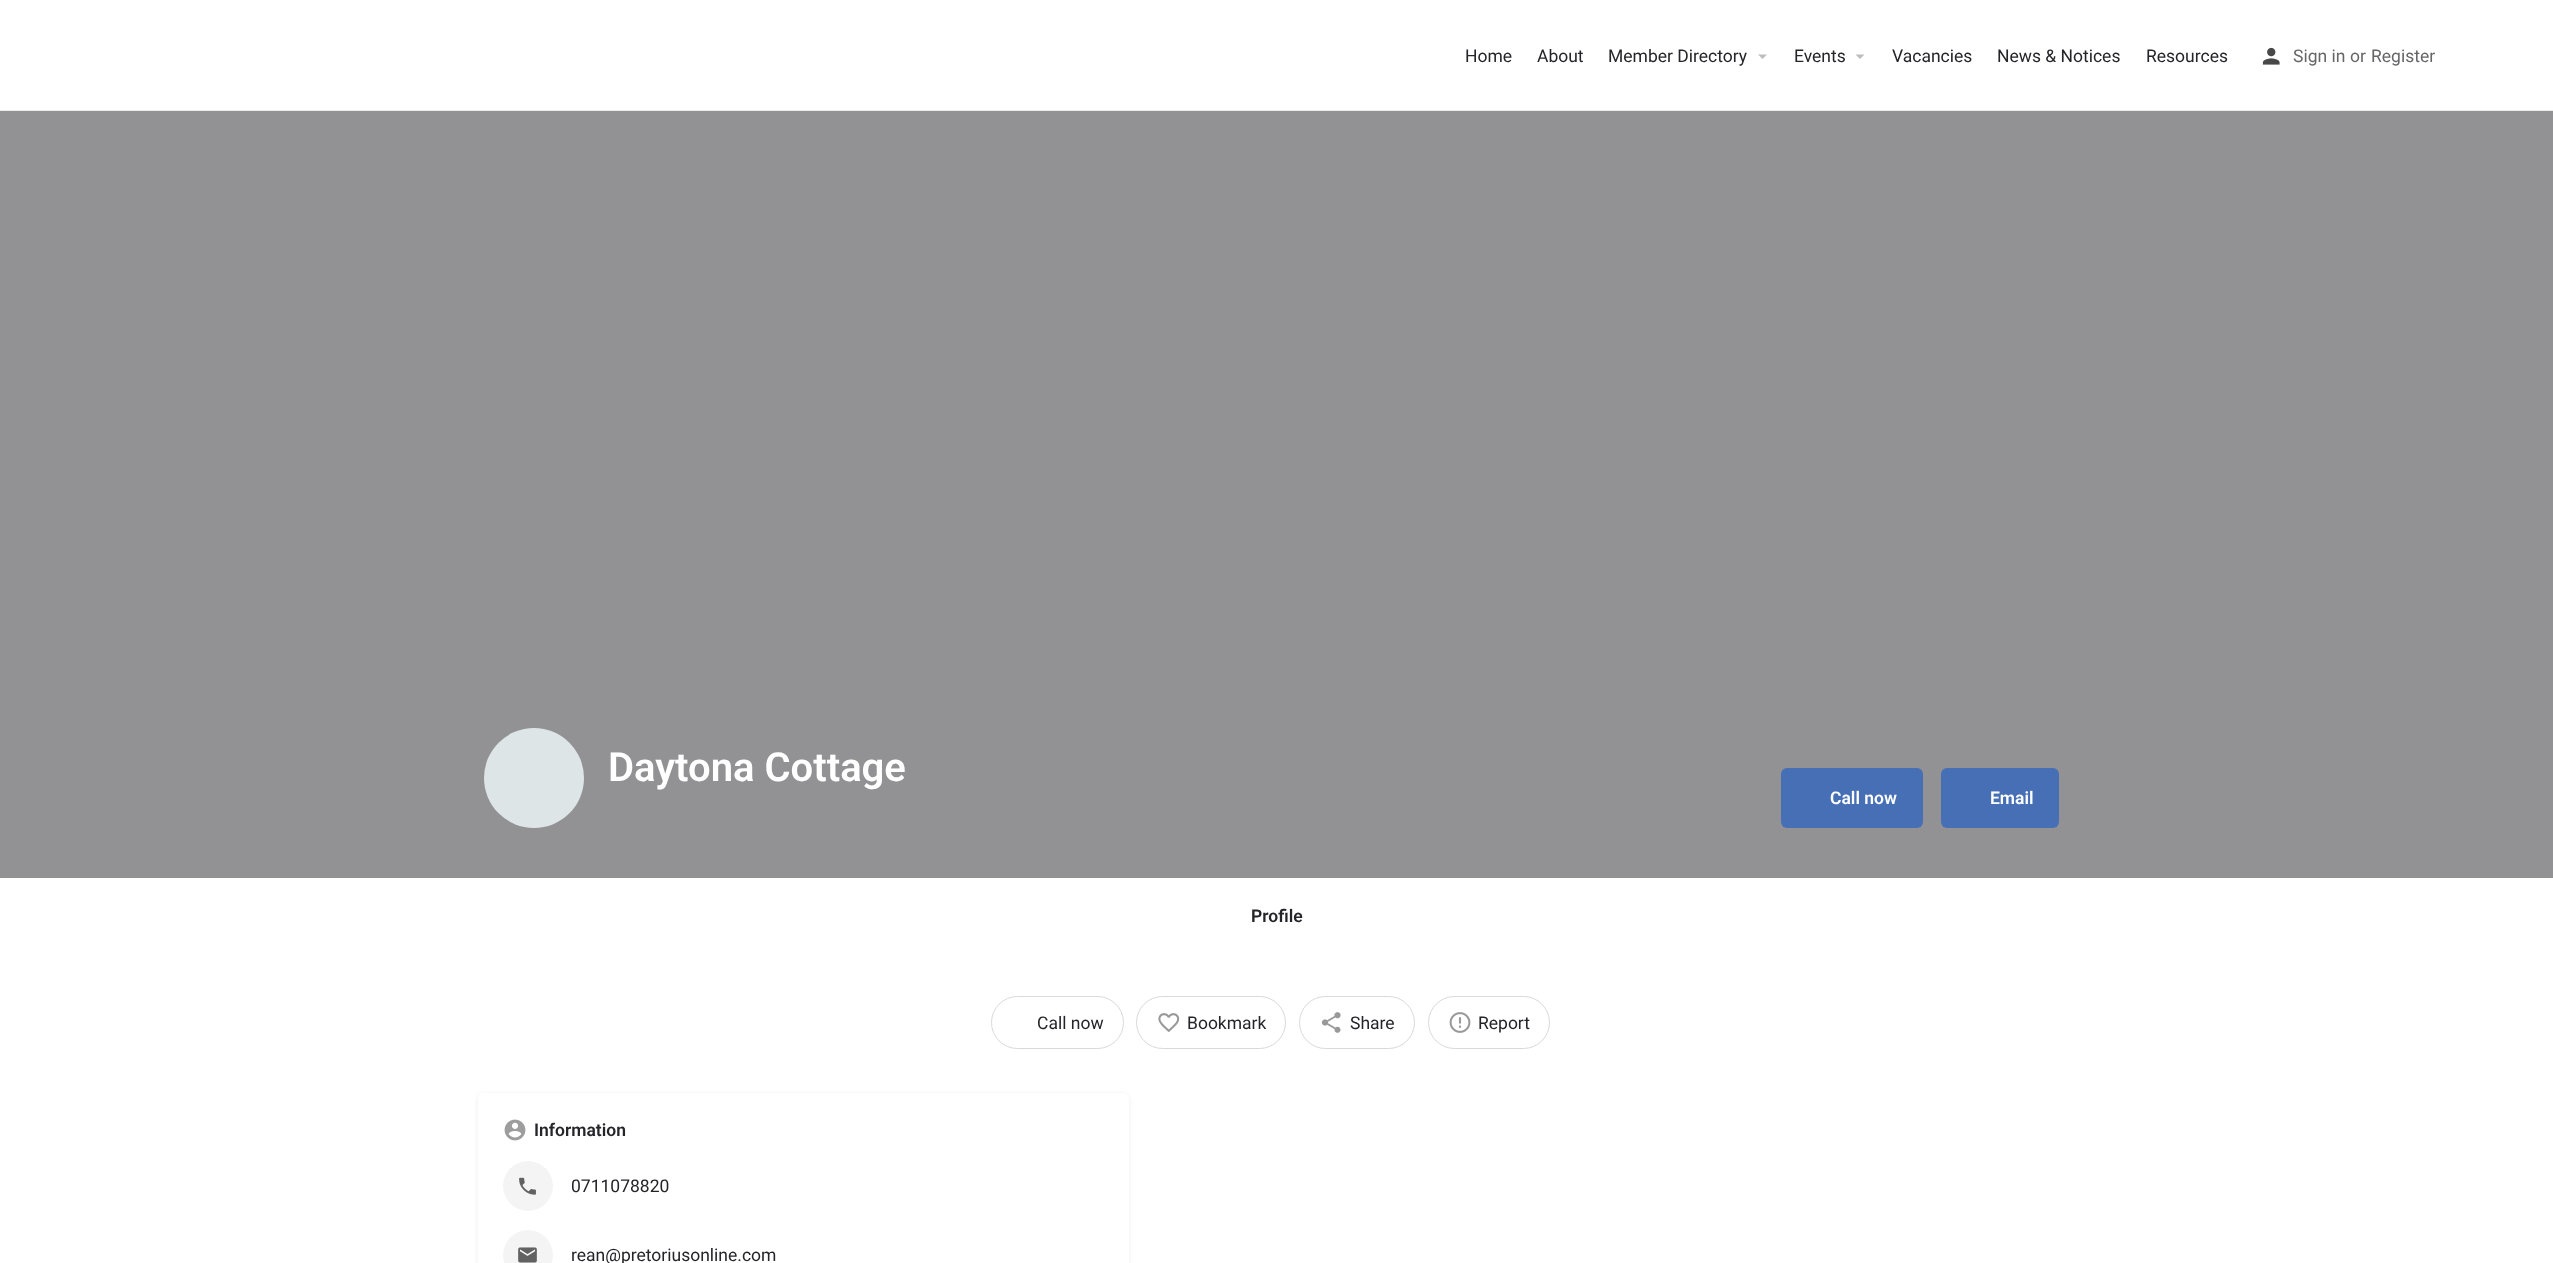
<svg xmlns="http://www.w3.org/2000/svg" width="2553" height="1263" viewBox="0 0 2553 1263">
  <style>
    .t1 { font: 17.5px Roboto; fill: #242429; }
    .t2 { font: 17.5px Roboto; fill: #666669; }
    .t3 { font: 600 40px Roboto; fill: #fff; }
    .t4 { font: 600 17.5px Roboto; fill: #fff; }
    .t5 { font: 600 17.5px Roboto; fill: #242429; }
  </style>
  <rect width="100%" height="100%" fill="#fff"/>
  <text x="1465" y="62" class="t1">Home</text>
  <text x="1537" y="62" class="t1">About</text>
  <text x="1608" y="62" class="t1">Member Directory</text>
  <path d="M1758 54.5H1767L1762.5 59Z" fill="#bdbdbf"/>
  <text x="1794" y="62" class="t1">Events</text>
  <path d="M1855.5 54.5H1864.5L1860 59Z" fill="#bdbdbf"/>
  <text x="1892" y="62" class="t1">Vacancies</text>
  <text x="1997" y="62" class="t1">News &amp; Notices</text>
  <text x="2146" y="62" class="t1">Resources</text>
  <image x="2262" y="47" width="18" height="18" href="images/1.png"/>
  <text x="2293" y="62" class="t2">Sign in</text>
  <text x="2350" y="62" class="t2">or</text>
  <text x="2371" y="62" class="t2">Register</text>
  <rect x="0" y="110" width="2553" height="1" fill="#ebebeb"/>
  <rect x="0" y="111" width="2553" height="767" fill="#929294"/>
  <circle cx="534" cy="778" r="50" fill="#dde5e6"/>
  <text x="608" y="781" class="t3">Daytona Cottage</text>
  <rect x="1781" y="768" width="142" height="60" rx="6" fill="#466fb5"/>
  <text x="1830" y="804" class="t4">Call now</text>
  <rect x="1941" y="768" width="118" height="60" rx="6" fill="#466fb5"/>
  <text x="1990" y="804" class="t4">Email</text>
  <text x="1251" y="922" class="t5">Profile</text>
  <rect x="991.5" y="996.5" width="132" height="52" rx="26" fill="none" stroke="#d9d9d9"/>
  <text x="1037" y="1029" class="t1">Call now</text>
  <rect x="1136.5" y="996.5" width="149" height="52" rx="26" fill="none" stroke="#d9d9d9"/>
  <image x="1158" y="1013" width="22" height="20" href="images/2.png"/>
  <text x="1187" y="1029" class="t1">Bookmark</text>
  <rect x="1299.5" y="996.5" width="115" height="52" rx="26" fill="none" stroke="#d9d9d9"/>
  <image x="1321" y="1012" width="20" height="21" href="images/3.png"/>
  <text x="1350" y="1029" class="t1">Share</text>
  <rect x="1428.5" y="996.5" width="121" height="52" rx="26" fill="none" stroke="#d9d9d9"/>
  <image x="1449" y="1012" width="22" height="21" href="images/4.png"/>
  <text x="1478" y="1029" class="t1">Report</text>
  <rect x="478" y="1094" width="651" height="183" rx="6" fill="#00000012" filter="blur(2.5px)"/>
  <rect x="478" y="1093" width="651" height="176" rx="6" fill="#fff"/>
  <image x="504" y="1119" width="22" height="22" href="images/5.png"/>
  <text x="534" y="1136" class="t5">Information</text>
  <circle cx="528" cy="1186" r="25" fill="#f4f4f4"/>
  <image x="519" y="1177" width="17" height="18" href="images/6.png"/>
  <text x="571" y="1192" class="t1">0711078820</text>
  <circle cx="528" cy="1255" r="25" fill="#f4f4f4"/>
  <image x="518" y="1247" width="19" height="16" href="images/7.png"/>
  <text x="571" y="1261" class="t1">rean@pretoriusonline.com</text>
</svg>
